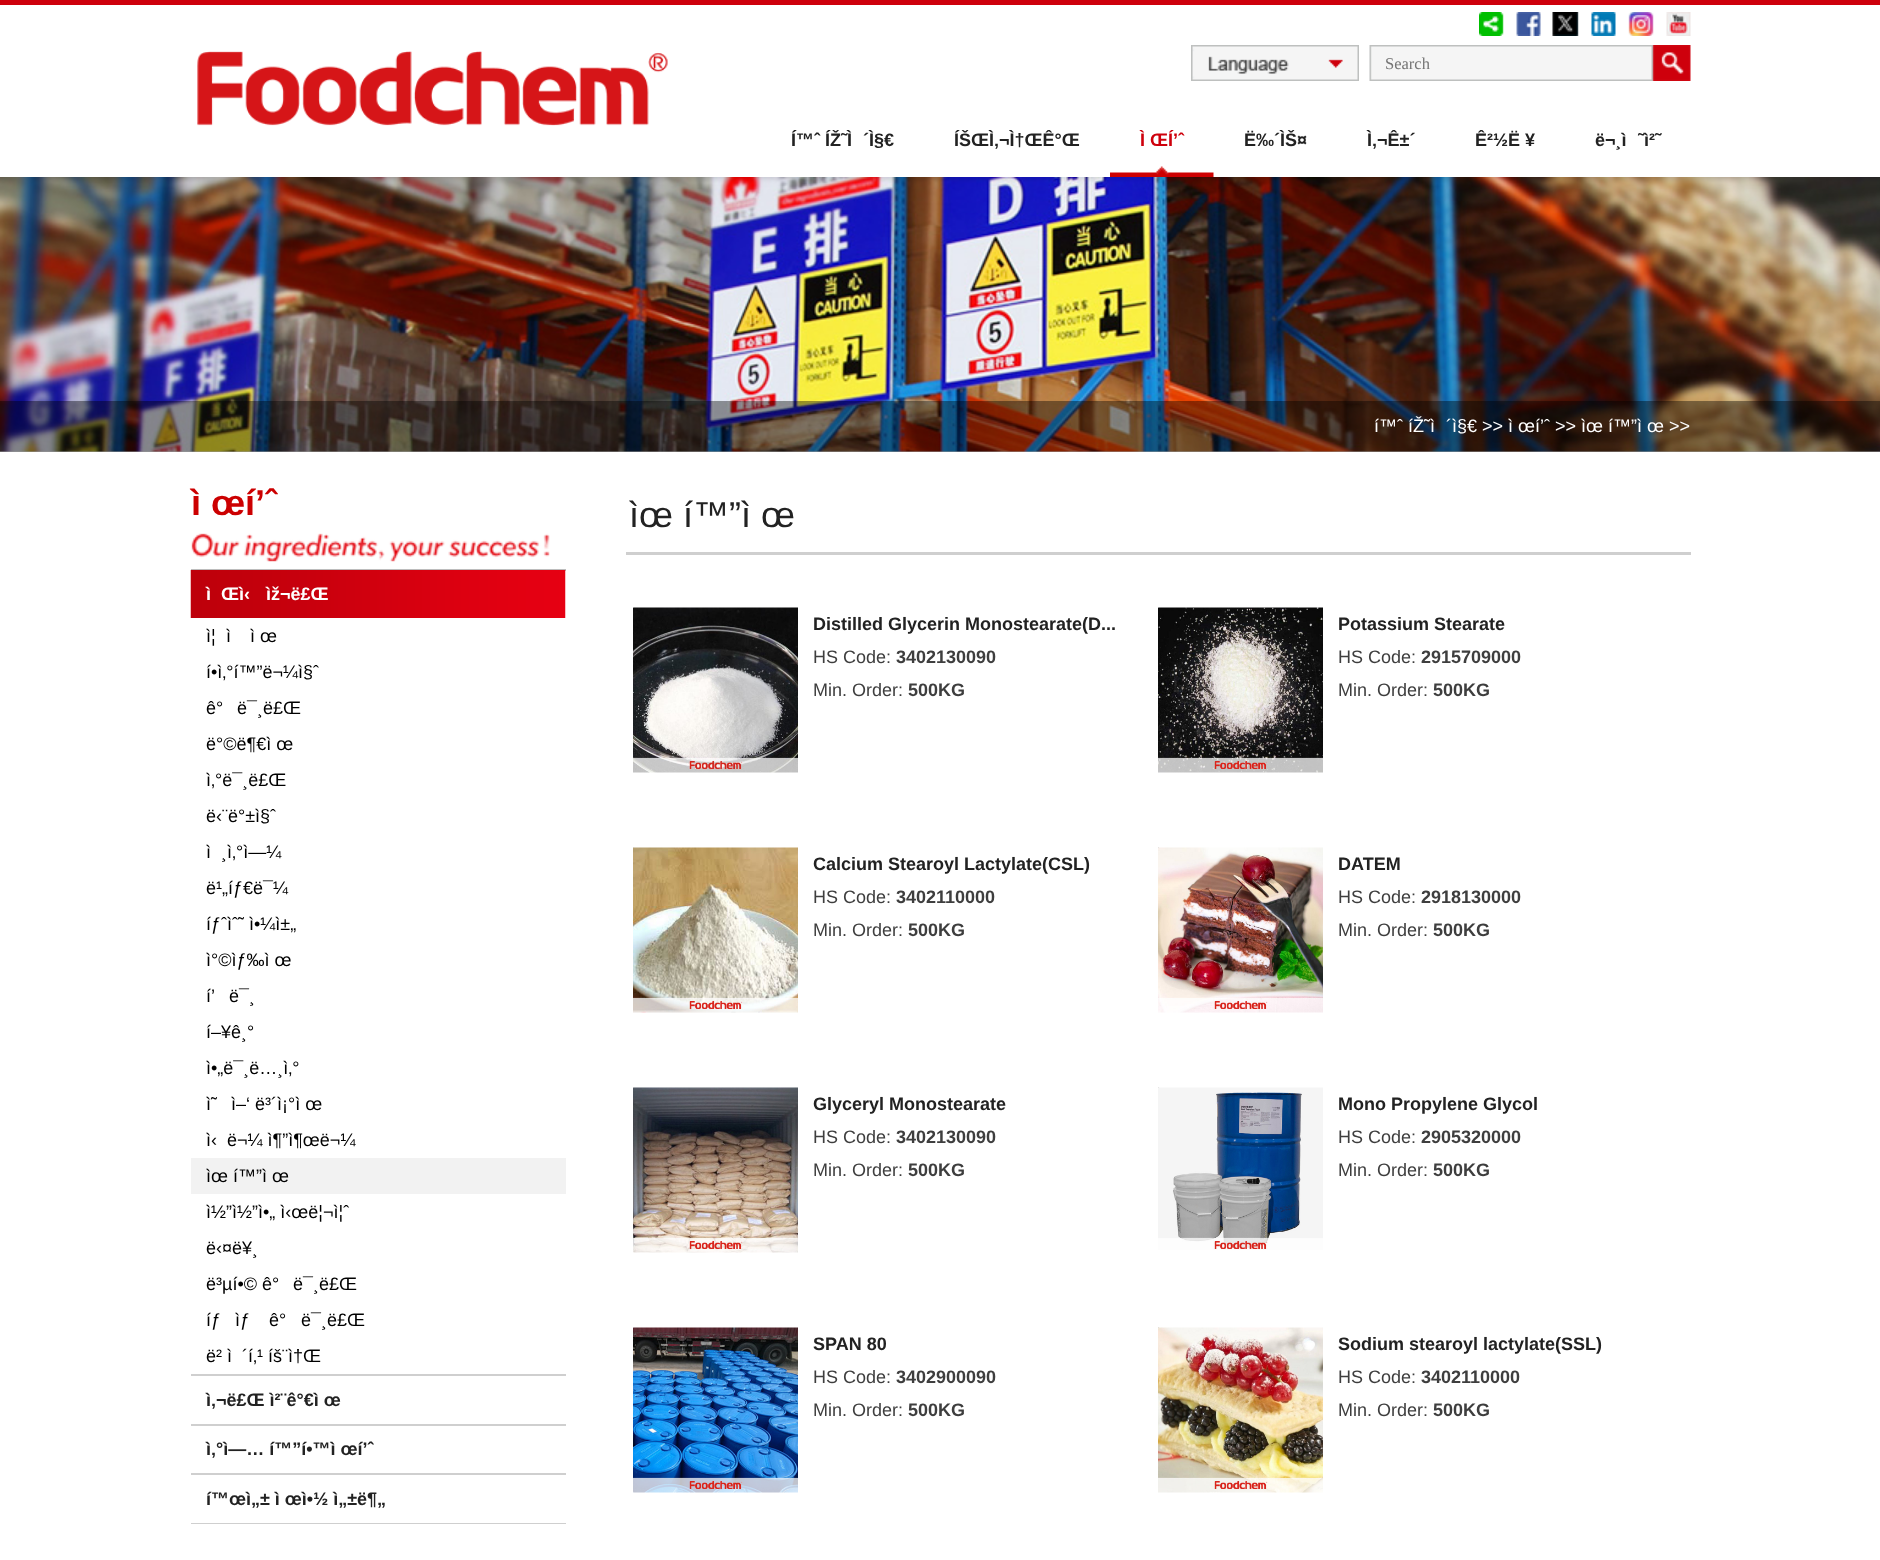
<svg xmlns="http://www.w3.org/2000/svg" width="1880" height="1560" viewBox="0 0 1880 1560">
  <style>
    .t1 { font: 16.5px Liberation Serif; fill: #757575; }
    .t2 { font: bold 18px Liberation Sans; fill: #222; }
    .t3 { font: bold 18px Liberation Sans; fill: #ce000c; }
    .t4 { font: 18px Liberation Sans; fill: #fff; }
    .t5 { font: bold 36px Liberation Sans; fill: #cc0001; }
    .t6 { font: bold 18px Liberation Sans; fill: #fff; }
    .t7 { font: 18px Liberation Sans; fill: #000; }
    .t8 { font: 36px Liberation Sans; fill: #222; }
    .t9 { font: 18px Liberation Sans; fill: #3e3e3e; }
    .t10 { font: bold 18px Liberation Sans; fill: #3e3e3e; }
  </style>
  <rect width="100%" height="100%" fill="#fff"/>
  <rect x="0" y="0" width="1880" height="5" fill="#ce000c"/>
  <image x="197" y="51" width="471" height="75" href="images/1.png"/>
  <image x="1479" y="12" width="212" height="24" href="images/2.png"/>
  <image x="1191" y="45" width="168" height="36" href="images/3.png"/>
  <image x="1369" y="45" width="322" height="36" href="images/4.png"/>
  <text x="1385" y="69" class="t1">Search</text>
  <text x="791" y="146" class="t2">Í™ˆ ÍŽ˜Ì</text>
  <text x="863" y="146" class="t2">´Ì§€</text>
  <text x="954" y="146" class="t2">ÍŠŒÌ‚¬Ì†ŒÊ°Œ</text>
  <image x="1110" y="166" width="104" height="11" href="images/5.png"/>
  <text x="1140" y="146" class="t3">Ì ŒÍ’ˆ</text>
  <text x="1244" y="146" class="t2">Ë‰´ÌŠ¤</text>
  <text x="1367" y="146" class="t2">Ì‚¬Ê±´</text>
  <text x="1475" y="146" class="t2">Ê²½Ë ¥</text>
  <text x="1595" y="146" class="t2">ë¬¸ì</text>
  <text x="1638" y="146" class="t2">˜ì²˜</text>
  <image x="0" y="177" width="1880" height="275" href="images/6.png"/>
  <rect x="0" y="401" width="1880" height="51" fill="#00000066"/>
  <text x="1374" y="432" class="t4">í™ˆ íŽ˜ì</text>
  <text x="1446" y="432" class="t4">´ì§€ &gt;&gt; ì œí’ˆ &gt;&gt; ìœ í™”ì œ &gt;&gt;</text>
  <text x="191" y="515" class="t5">ì œí’ˆ</text>
  <rect x="191" y="569" width="375" height="2" fill="#bcbcbc"/>
  <image x="191" y="533" width="359" height="29" href="images/7.png"/>
  <image x="190" y="570" width="376" height="48" href="images/8.png"/>
  <rect x="191" y="1374" width="375" height="2" fill="#cfcfcf"/>
  <text x="206" y="600" class="t6">ì</text>
  <text x="221" y="600" class="t6">Œì‹</text>
  <text x="266" y="600" class="t6">ìž¬ë£Œ</text>
  <text x="206" y="642" class="t7">ì¦</text>
  <text x="226" y="642" class="t7">ì</text>
  <text x="250" y="642" class="t7">ì œ</text>
  <text x="206" y="678" class="t7">í•ì‚°í™”ë¬¼ì§ˆ</text>
  <text x="206" y="714" class="t7">ê°</text>
  <text x="237" y="714" class="t7">ë¯¸ë£Œ</text>
  <text x="206" y="750" class="t7">ë°©ë¶€ì œ</text>
  <text x="206" y="786" class="t7">ì‚°ë¯¸ë£Œ</text>
  <text x="206" y="822" class="t7">ë‹¨ë°±ì§ˆ</text>
  <text x="206" y="858" class="t7">ì</text>
  <text x="221" y="858" class="t7">¸ì‚°ì—¼</text>
  <text x="206" y="894" class="t7">ë¹„íƒ€ë¯¼</text>
  <text x="206" y="930" class="t7">íƒˆìˆ˜ ì•¼ì±„</text>
  <text x="206" y="966" class="t7">ì°©ìƒ‰ì œ</text>
  <text x="206" y="1002" class="t7">í’</text>
  <text x="229" y="1002" class="t7">ë¯¸</text>
  <text x="206" y="1038" class="t7">í–¥ê¸°</text>
  <text x="206" y="1074" class="t7">ì•„ë¯¸ë…¸ì‚°</text>
  <text x="206" y="1110" class="t7">ì˜</text>
  <text x="231" y="1110" class="t7">ì–‘ ë³´ì¡°ì œ</text>
  <text x="206" y="1146" class="t7">ì‹</text>
  <text x="227" y="1146" class="t7">ë¬¼ ì¶”ì¶œë¬¼</text>
  <rect x="191" y="1158" width="375" height="36" fill="#f2f2f2"/>
  <text x="206" y="1182" class="t7">ìœ í™”ì œ</text>
  <text x="206" y="1218" class="t7">ì½”ì½”ì•„ ì‹œë¦¬ì¦ˆ</text>
  <text x="206" y="1254" class="t7">ë‹¤ë¥¸</text>
  <text x="206" y="1290" class="t7">ë³µí•© ê°</text>
  <text x="293" y="1290" class="t7">ë¯¸ë£Œ</text>
  <text x="206" y="1326" class="t7">íƒ</text>
  <text x="235" y="1326" class="t7">ìƒ</text>
  <text x="269" y="1326" class="t7">ê°</text>
  <text x="301" y="1326" class="t7">ë¯¸ë£Œ</text>
  <text x="206" y="1362" class="t7">ë² ì</text>
  <text x="242" y="1362" class="t7">´í‚¹ íš¨ì†Œ</text>
  <rect x="191" y="1424" width="375" height="2" fill="#cfcfcf"/>
  <text x="206" y="1406" class="t2">ì‚¬ë£Œ ì²¨ê°€ì œ</text>
  <rect x="191" y="1473" width="375" height="2" fill="#cfcfcf"/>
  <text x="206" y="1455" class="t2">ì‚°ì—… í™”í•™ì œí’ˆ</text>
  <rect x="191" y="1523" width="375" height="1" fill="#cfcfcf"/>
  <text x="206" y="1505" class="t2">í™œì„± ì œì•½ ì„±ë¶„</text>
  <rect x="626" y="552" width="1065" height="3" fill="#cfcfcf"/>
  <text x="629" y="527" class="t8">ìœ í™”ì œ</text>
  <image x="633" y="607" width="165" height="166" href="images/9.png"/>
  <text x="813" y="630" class="t2">Distilled Glycerin Monostearate(D...</text>
  <text x="813" y="663" class="t9">HS Code:</text>
  <text x="896" y="663" class="t10">3402130090</text>
  <text x="813" y="696" class="t9">Min. Order:</text>
  <text x="908" y="696" class="t10">500KG</text>
  <image x="1158" y="607" width="165" height="166" href="images/10.png"/>
  <text x="1338" y="630" class="t2">Potassium Stearate</text>
  <text x="1338" y="663" class="t9">HS Code:</text>
  <text x="1421" y="663" class="t10">2915709000</text>
  <text x="1338" y="696" class="t9">Min. Order:</text>
  <text x="1433" y="696" class="t10">500KG</text>
  <image x="633" y="847" width="165" height="166" href="images/11.png"/>
  <text x="813" y="870" class="t2">Calcium Stearoyl Lactylate(CSL)</text>
  <text x="813" y="903" class="t9">HS Code:</text>
  <text x="896" y="903" class="t10">3402110000</text>
  <text x="813" y="936" class="t9">Min. Order:</text>
  <text x="908" y="936" class="t10">500KG</text>
  <image x="1158" y="847" width="165" height="166" href="images/12.png"/>
  <text x="1338" y="870" class="t2">DATEM</text>
  <text x="1338" y="903" class="t9">HS Code:</text>
  <text x="1421" y="903" class="t10">2918130000</text>
  <text x="1338" y="936" class="t9">Min. Order:</text>
  <text x="1433" y="936" class="t10">500KG</text>
  <image x="633" y="1087" width="165" height="166" href="images/13.png"/>
  <text x="813" y="1110" class="t2">Glyceryl Monostearate</text>
  <text x="813" y="1143" class="t9">HS Code:</text>
  <text x="896" y="1143" class="t10">3402130090</text>
  <text x="813" y="1176" class="t9">Min. Order:</text>
  <text x="908" y="1176" class="t10">500KG</text>
  <image x="1158" y="1087" width="165" height="163" href="images/14.png"/>
  <text x="1338" y="1110" class="t2">Mono Propylene Glycol</text>
  <text x="1338" y="1143" class="t9">HS Code:</text>
  <text x="1421" y="1143" class="t10">2905320000</text>
  <text x="1338" y="1176" class="t9">Min. Order:</text>
  <text x="1433" y="1176" class="t10">500KG</text>
  <image x="633" y="1327" width="165" height="166" href="images/15.png"/>
  <text x="813" y="1350" class="t2">SPAN 80</text>
  <text x="813" y="1383" class="t9">HS Code:</text>
  <text x="896" y="1383" class="t10">3402900090</text>
  <text x="813" y="1416" class="t9">Min. Order:</text>
  <text x="908" y="1416" class="t10">500KG</text>
  <image x="1158" y="1327" width="165" height="166" href="images/16.png"/>
  <text x="1338" y="1350" class="t2">Sodium stearoyl lactylate(SSL)</text>
  <text x="1338" y="1383" class="t9">HS Code:</text>
  <text x="1421" y="1383" class="t10">3402110000</text>
  <text x="1338" y="1416" class="t9">Min. Order:</text>
  <text x="1433" y="1416" class="t10">500KG</text>
</svg>
